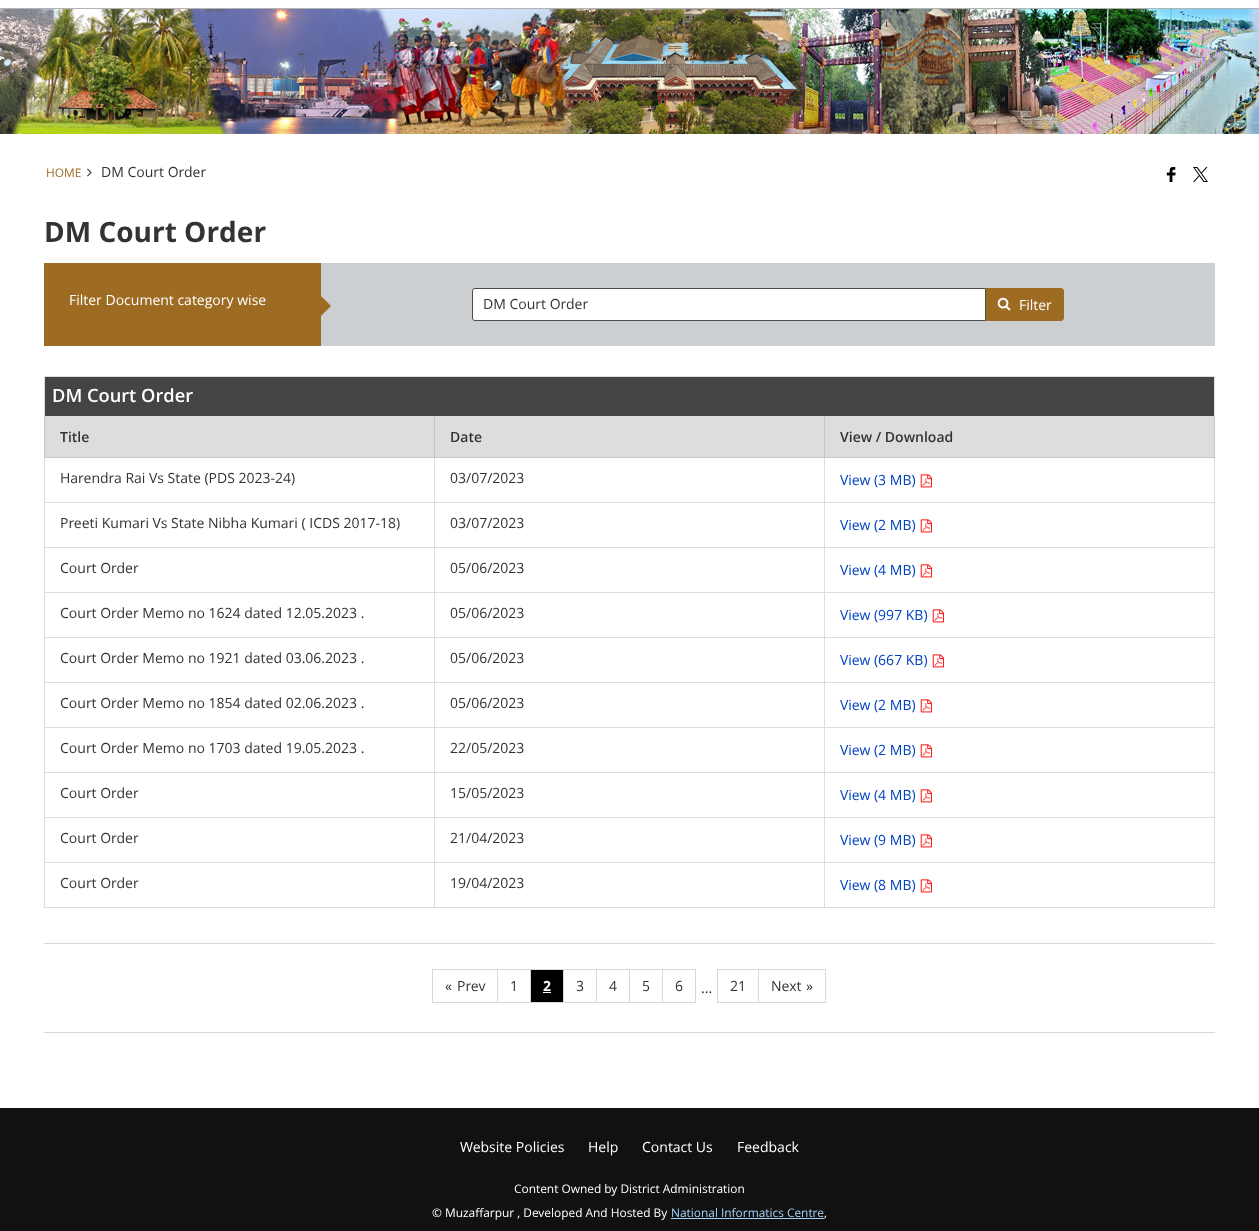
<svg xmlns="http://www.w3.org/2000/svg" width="1259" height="1231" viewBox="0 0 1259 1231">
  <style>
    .t1 { font: 11.9px Open Sans; fill: #9e6b22; }
    .t2 { font: 14px Open Sans; fill: #333; }
    .t3 { font: bold 28px Open Sans; fill: #333; }
    .t4 { font: 14px Open Sans; fill: #fff; }
    .t5 { font: 600 18.25px Open Sans; fill: #fff; }
    .t6 { font: 600 14px Open Sans; fill: #333; }
    .t7 { font: 14px Open Sans; fill: #0042bf; }
    .t8 { font: bold 14px Open Sans; fill: #fff; }
    .t9 { font: 11.9px Open Sans; fill: #fff; }
    .t10 { font: 11.9px Open Sans; fill: #a3d2f9; }
  </style>
  <rect width="100%" height="100%" fill="#fff"/>
  <rect x="0" y="8" width="1259" height="1" fill="#b3b3b3"/>
  <image x="0" y="9" width="1259" height="125" href="images/1.png"/>
  <text x="46" y="177" class="t1">HOME</text>
  <image x="87" y="168" width="5" height="9" href="images/2.png"/>
  <text x="101" y="177" class="t2">DM Court Order</text>
  <image x="1166" y="167" width="10" height="15" href="images/3.png"/>
  <image x="1193" y="167" width="15" height="15" href="images/4.png"/>
  <text x="44" y="242" class="t3">DM Court Order</text>
  <rect x="321" y="263" width="894" height="83" fill="#cccfd1"/>
  <rect x="44" y="263" width="277" height="83" fill="#9e6b22"/>
  <text x="69" y="305" class="t4">Filter Document category wise</text>
  <path d="M321 316V296L331 306Z" fill="#9e6b22"/>
  <path d="M475 288.5H985.5V320.5H475C473.5 320.5 472.5 319.5 472.5 318V291C472.5 289.5 473.5 288.5 475 288.5Z" fill="#fff" stroke="#504949"/>
  <text x="483" y="309" class="t2">DM Court Order</text>
  <path d="M986 288H1061C1062.5 288 1064 289.5 1064 291V318C1064 319.5 1062.5 321 1061 321H986Z" fill="#9e6b22"/>
  <image x="997" y="297" width="14" height="14" href="images/5.png"/>
  <text x="1019" y="310" class="t4">Filter</text>
  <rect x="44" y="376" width="1171" height="1" fill="#ddd"/>
  <rect x="1214" y="376" width="1" height="532" fill="#ddd"/>
  <rect x="44" y="907" width="1171" height="1" fill="#ddd"/>
  <rect x="44" y="376" width="1" height="532" fill="#ddd"/>
  <rect x="45" y="377" width="1169" height="39" fill="#444"/>
  <text x="52" y="402" class="t5">DM Court Order</text>
  <rect x="45" y="416" width="389" height="41" fill="#ddd"/>
  <rect x="1214" y="416" width="1" height="42" fill="#c7c7c7"/>
  <rect x="44" y="502" width="1171" height="1" fill="#ddd"/>
  <rect x="44" y="547" width="1171" height="1" fill="#ddd"/>
  <rect x="44" y="592" width="1171" height="1" fill="#ddd"/>
  <rect x="44" y="637" width="1171" height="1" fill="#ddd"/>
  <rect x="44" y="682" width="1171" height="1" fill="#ddd"/>
  <rect x="44" y="727" width="1171" height="1" fill="#ddd"/>
  <rect x="44" y="772" width="1171" height="1" fill="#ddd"/>
  <rect x="44" y="817" width="1171" height="1" fill="#ddd"/>
  <rect x="44" y="862" width="1171" height="1" fill="#ddd"/>
  <rect x="824" y="862" width="1" height="46" fill="#ddd"/>
  <rect x="824" y="817" width="1" height="46" fill="#ddd"/>
  <rect x="824" y="772" width="1" height="46" fill="#ddd"/>
  <rect x="824" y="727" width="1" height="46" fill="#ddd"/>
  <rect x="824" y="682" width="1" height="46" fill="#ddd"/>
  <rect x="824" y="637" width="1" height="46" fill="#ddd"/>
  <rect x="824" y="592" width="1" height="46" fill="#ddd"/>
  <rect x="824" y="547" width="1" height="46" fill="#ddd"/>
  <rect x="824" y="457" width="1" height="91" fill="#ddd"/>
  <rect x="824" y="457" width="391" height="1" fill="#c7c7c7"/>
  <rect x="824" y="416" width="1" height="42" fill="#c7c7c7"/>
  <rect x="434" y="862" width="1" height="46" fill="#ddd"/>
  <rect x="434" y="817" width="1" height="46" fill="#ddd"/>
  <rect x="434" y="772" width="1" height="46" fill="#ddd"/>
  <rect x="434" y="727" width="1" height="46" fill="#ddd"/>
  <rect x="434" y="682" width="1" height="46" fill="#ddd"/>
  <rect x="434" y="637" width="1" height="46" fill="#ddd"/>
  <rect x="434" y="592" width="1" height="46" fill="#ddd"/>
  <rect x="434" y="547" width="1" height="46" fill="#ddd"/>
  <rect x="434" y="457" width="1" height="91" fill="#ddd"/>
  <rect x="434" y="457" width="391" height="1" fill="#c7c7c7"/>
  <rect x="434" y="416" width="1" height="42" fill="#c7c7c7"/>
  <rect x="44" y="457" width="391" height="1" fill="#c7c7c7"/>
  <rect x="44" y="416" width="1" height="42" fill="#c7c7c7"/>
  <text x="60" y="442" class="t6">Title</text>
  <rect x="435" y="416" width="389" height="41" fill="#ddd"/>
  <text x="450" y="442" class="t6">Date</text>
  <rect x="825" y="416" width="389" height="41" fill="#ddd"/>
  <text x="840" y="442" class="t6">View / Download</text>
  <text x="60" y="483" class="t2">Harendra Rai Vs State (PDS 2023-24)</text>
  <text x="450" y="483" class="t2">03/07/2023</text>
  <text x="840" y="485" class="t7">View (3 MB)</text>
  <image x="920" y="474" width="12" height="14" href="images/6.png"/>
  <text x="60" y="528" class="t2">Preeti Kumari Vs State Nibha Kumari ( ICDS 2017-18)</text>
  <text x="450" y="528" class="t2">03/07/2023</text>
  <text x="840" y="530" class="t7">View (2 MB)</text>
  <image x="920" y="519" width="12" height="14" href="images/6.png"/>
  <text x="60" y="573" class="t2">Court Order</text>
  <text x="450" y="573" class="t2">05/06/2023</text>
  <text x="840" y="575" class="t7">View (4 MB)</text>
  <image x="920" y="564" width="12" height="14" href="images/6.png"/>
  <text x="60" y="618" class="t2">Court Order Memo no 1624 dated 12.05.2023 .</text>
  <text x="450" y="618" class="t2">05/06/2023</text>
  <text x="840" y="620" class="t7">View (997 KB)</text>
  <image x="932" y="609" width="12" height="14" href="images/6.png"/>
  <text x="60" y="663" class="t2">Court Order Memo no 1921 dated 03.06.2023 .</text>
  <text x="450" y="663" class="t2">05/06/2023</text>
  <text x="840" y="665" class="t7">View (667 KB)</text>
  <image x="932" y="654" width="12" height="14" href="images/6.png"/>
  <text x="60" y="708" class="t2">Court Order Memo no 1854 dated 02.06.2023 .</text>
  <text x="450" y="708" class="t2">05/06/2023</text>
  <text x="840" y="710" class="t7">View (2 MB)</text>
  <image x="920" y="699" width="12" height="14" href="images/6.png"/>
  <text x="60" y="753" class="t2">Court Order Memo no 1703 dated 19.05.2023 .</text>
  <text x="450" y="753" class="t2">22/05/2023</text>
  <text x="840" y="755" class="t7">View (2 MB)</text>
  <image x="920" y="744" width="12" height="14" href="images/6.png"/>
  <text x="60" y="798" class="t2">Court Order</text>
  <text x="450" y="798" class="t2">15/05/2023</text>
  <text x="840" y="800" class="t7">View (4 MB)</text>
  <image x="920" y="789" width="12" height="14" href="images/6.png"/>
  <text x="60" y="843" class="t2">Court Order</text>
  <text x="450" y="843" class="t2">21/04/2023</text>
  <text x="840" y="845" class="t7">View (9 MB)</text>
  <image x="920" y="834" width="12" height="14" href="images/6.png"/>
  <text x="60" y="888" class="t2">Court Order</text>
  <text x="450" y="888" class="t2">19/04/2023</text>
  <text x="840" y="890" class="t7">View (8 MB)</text>
  <image x="920" y="879" width="12" height="14" href="images/6.png"/>
  <rect x="44" y="943" width="1171" height="1" fill="#d8d8d8"/>
  <rect x="44" y="1032" width="1171" height="1" fill="#d8d8d8"/>
  <rect x="432.5" y="969.5" width="65" height="33" fill="none" stroke="#d8d8d8"/>
  <text x="445" y="991" class="t2">«</text>
  <text x="457" y="991" class="t2">Prev</text>
  <rect x="497.5" y="969.5" width="33" height="33" fill="none" stroke="#d8d8d8"/>
  <text x="510" y="991" class="t2">1</text>
  <rect x="530.5" y="969.5" width="33" height="33" fill="#000" stroke="#d8d8d8"/>
  <text x="543" y="991" class="t8">2</text>
  <rect x="543" y="992" width="8" height="1" fill="#fff"/>
  <rect x="563.5" y="969.5" width="33" height="33" fill="none" stroke="#d8d8d8"/>
  <text x="576" y="991" class="t2">3</text>
  <rect x="596.5" y="969.5" width="33" height="33" fill="none" stroke="#d8d8d8"/>
  <text x="609" y="991" class="t2">4</text>
  <rect x="629.5" y="969.5" width="33" height="33" fill="none" stroke="#d8d8d8"/>
  <text x="642" y="991" class="t2">5</text>
  <rect x="662.5" y="969.5" width="33" height="33" fill="none" stroke="#d8d8d8"/>
  <text x="675" y="991" class="t2">6</text>
  <rect x="717.5" y="969.5" width="41" height="33" fill="none" stroke="#d8d8d8"/>
  <text x="730" y="991" class="t2">21</text>
  <rect x="758.5" y="969.5" width="67" height="33" fill="none" stroke="#d8d8d8"/>
  <text x="771" y="991" class="t2">Next</text>
  <text x="806" y="991" class="t2">»</text>
  <text x="701" y="993" class="t2">...</text>
  <rect x="0" y="1108" width="1259" height="123" fill="#111"/>
  <text x="460" y="1152" class="t4">Website Policies</text>
  <text x="588" y="1152" class="t4">Help</text>
  <text x="642" y="1152" class="t4">Contact Us</text>
  <text x="737" y="1152" class="t4">Feedback</text>
  <text x="514" y="1193" class="t9">Content Owned by District Administration</text>
  <text x="432" y="1217" class="t9">© Muzaffarpur , Developed And Hosted By</text>
  <text x="671" y="1217" class="t10">National Informatics Centre</text>
  <rect x="671" y="1218" width="153" height="1" fill="#a3d2f9"/>
  <text x="824" y="1217" class="t9">,</text>
</svg>
